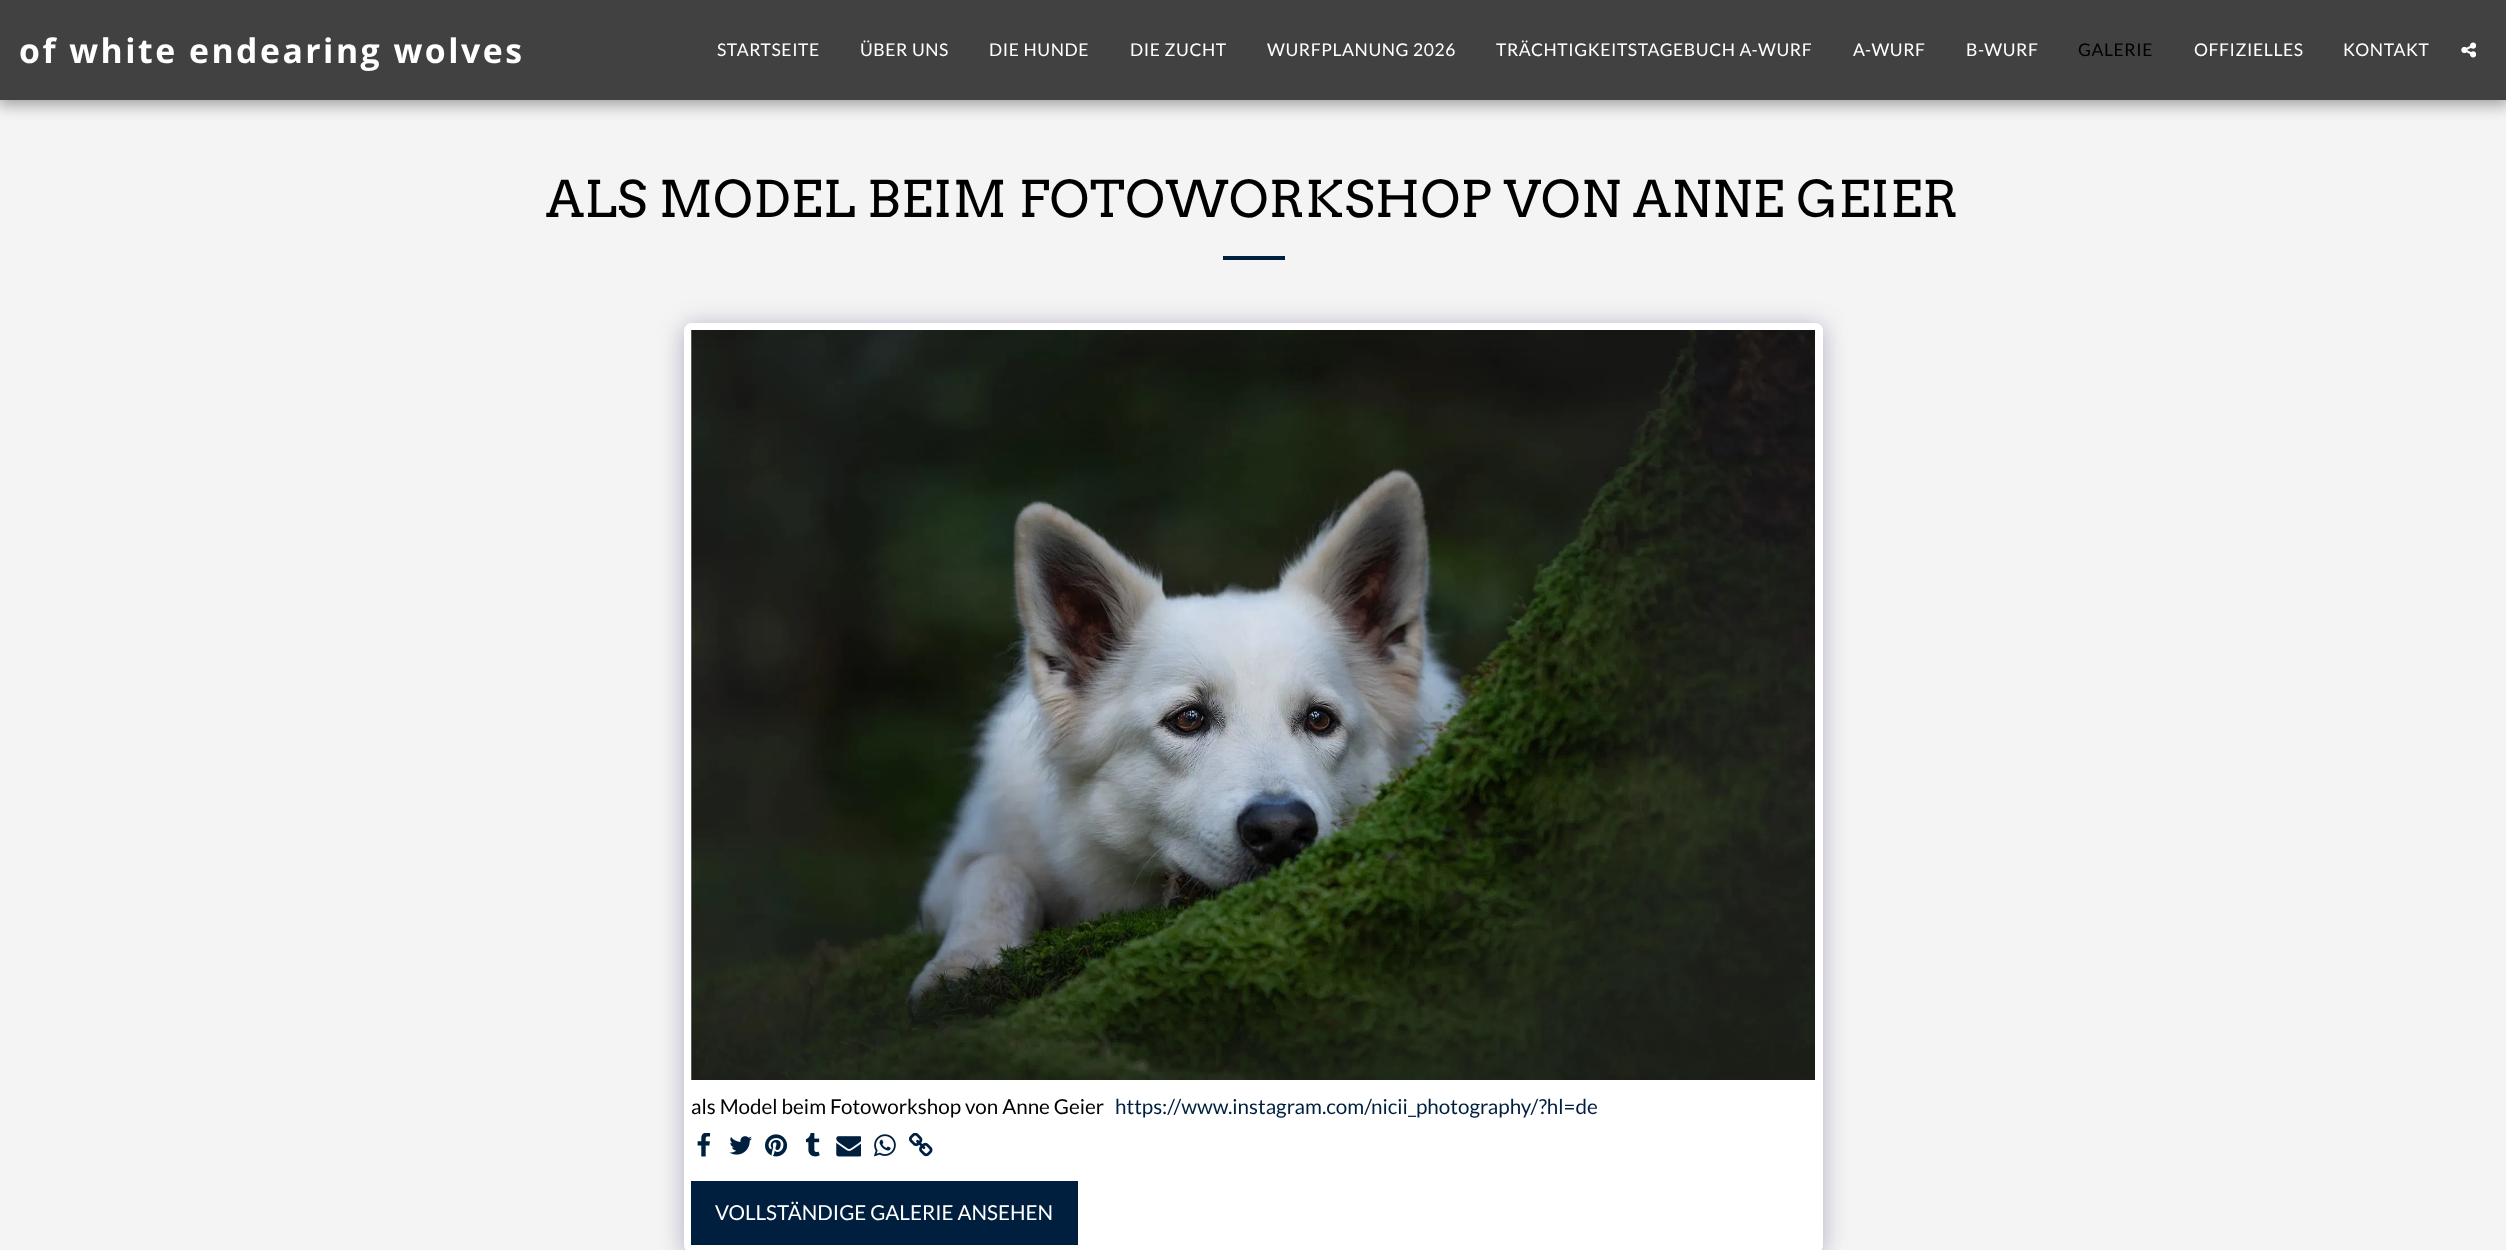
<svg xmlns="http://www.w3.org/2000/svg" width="2506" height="1250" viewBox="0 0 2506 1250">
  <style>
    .t1 { font: bold 33.75px Open Sans; letter-spacing: 2.5px; fill: #fff; }
    .t2 { font: 17.5px Lato; letter-spacing: 0.6px; fill: #fff; }
    .t3 { font: 17.5px Lato; letter-spacing: 0.6px; fill: #000; }
    .t4 { font: 50.35px Arvo; letter-spacing: 0.6px; fill: #000; }
    .t5 { font: 20.6px Lato; fill: #000; }
    .t6 { font: 20.6px Lato; fill: #001f3f; }
    .t7 { font: 20.6px Lato; fill: #fff; }
  </style>
  <rect width="100%" height="100%" fill="#f4f4f4"/>
  <rect x="-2" y="0" width="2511" height="105" fill="#00000059" filter="blur(7.5px)"/>
  <rect x="0" y="0" width="2506" height="100" fill="#414141"/>
  <text x="19" y="63" class="t1">of white endearing wolves</text>
  <text x="717" y="56" class="t2">STARTSEITE</text>
  <text x="860" y="56" class="t2">ÜBER UNS</text>
  <text x="989" y="56" class="t2">DIE HUNDE</text>
  <text x="1130" y="56" class="t2">DIE ZUCHT</text>
  <text x="1267" y="56" class="t2">WURFPLANUNG 2026</text>
  <text x="1496" y="56" class="t2">TRÄCHTIGKEITSTAGEBUCH A-WURF</text>
  <text x="1853" y="56" class="t2">A-WURF</text>
  <text x="1966" y="56" class="t2">B-WURF</text>
  <text x="2078" y="56" class="t3">GALERIE</text>
  <text x="2194" y="56" class="t2">OFFIZIELLES</text>
  <text x="2343" y="56" class="t2">KONTAKT</text>
  <image x="2461" y="42" width="15" height="16" href="images/1.png"/>
  <text x="546" y="217" class="t4">ALS MODEL BEIM FOTOWORKSHOP VON ANNE GEIER</text>
  <rect x="1223" y="256" width="62" height="4" fill="#001f3f"/>
  <rect x="684" y="326" width="1139" height="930" rx="8" fill="#4d3f7a66" filter="blur(12.5px)"/>
  <rect x="684" y="323" width="1139" height="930" rx="8" fill="#fff"/>
  <image x="691" y="330" width="1124" height="750" href="images/2.png"/>
  <text x="691" y="1114" class="t5">als Model beim Fotoworkshop von Anne Geier</text>
  <text x="1115" y="1114" class="t6">https://www.instagram.com/nicii_photography/?hl=de</text>
  <image x="697" y="1133" width="14" height="24" href="images/3.png"/>
  <image x="729" y="1136" width="23" height="19" href="images/4.png"/>
  <image x="765" y="1134" width="23" height="23" href="images/5.png"/>
  <image x="805" y="1133" width="15" height="24" href="images/6.png"/>
  <image x="836" y="1136" width="25" height="21" href="images/7.png"/>
  <image x="874" y="1134" width="22" height="23" href="images/8.png"/>
  <image x="909" y="1133" width="24" height="24" href="images/9.png"/>
  <rect x="691" y="1181" width="387" height="64" fill="#001f3f"/>
  <text x="715" y="1220" class="t7">VOLLSTÄNDIGE GALERIE ANSEHEN</text>
</svg>
